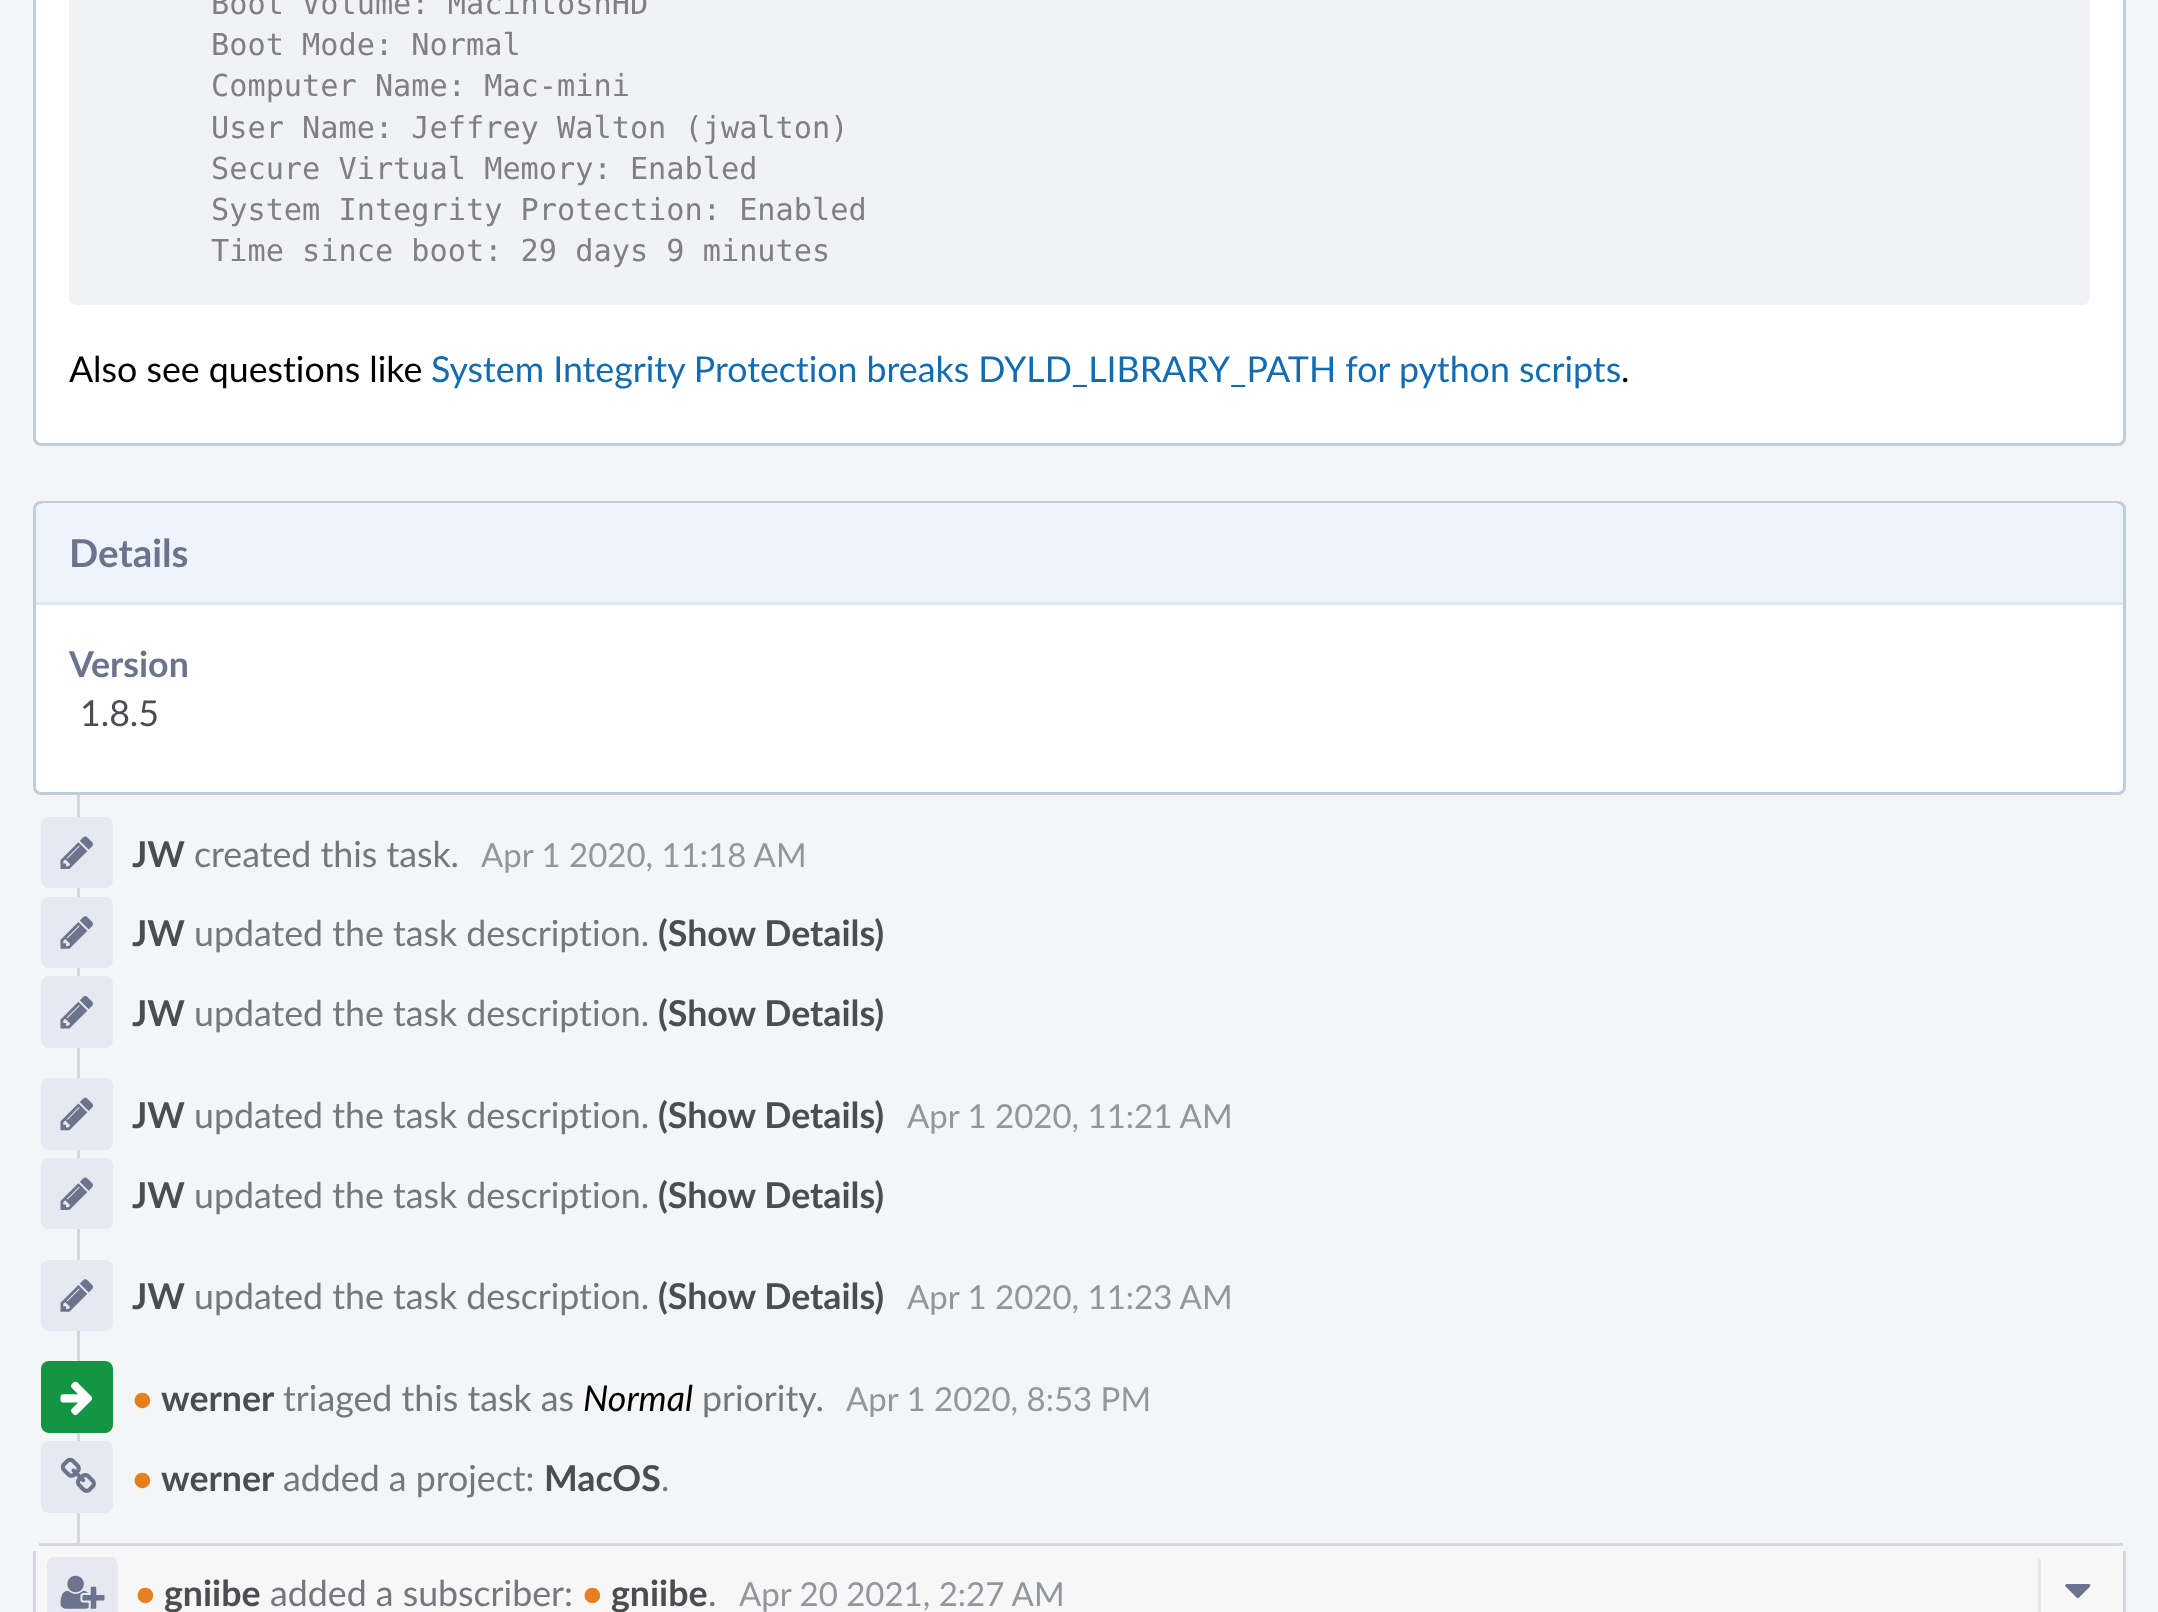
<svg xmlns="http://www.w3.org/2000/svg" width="2158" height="1612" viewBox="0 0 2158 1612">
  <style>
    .t1 { font: 30.25px DejaVu Sans Mono; fill: #808080; }
    .t2 { font: 35.75px Lato; fill: #000; }
    .t3 { font: 35.75px Lato; fill: #136cb2; }
    .t4 { font: bold 38.5px Lato; fill: #6b748c; }
    .t5 { font: bold 35.75px Lato; fill: #6b748c; }
    .t6 { font: 35.75px Lato; fill: #4b4d51; }
    .t7 { font: bold 35.75px Lato; fill: #4b4d51; }
    .t8 { font: 35.75px Lato; fill: #74777d; }
    .t9 { font: 33px Lato; fill: #92969d; }
    .t10 { font: bold 35.75px Lato; fill: #e67e22; }
    .t11 { font: italic 35.75px Lato; fill: #000; }
  </style>
  <rect width="100%" height="100%" fill="#f3f5f7"/>
  <rect x="34.5" y="-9.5" width="2090" height="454" rx="6.5" fill="#fff" stroke="#bfcfda" stroke-width="3"/>
  <rect x="69" y="-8" width="2021" height="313" rx="8" fill="#f1f2f5"/>
  <text x="211" y="14" class="t1">Boot Volume: MacintoshHD</text>
  <text x="211" y="55" class="t1">Boot Mode: Normal</text>
  <text x="211" y="96" class="t1">Computer Name: Mac-mini</text>
  <text x="211" y="138" class="t1">User Name: Jeffrey Walton (jwalton)</text>
  <text x="211" y="179" class="t1">Secure Virtual Memory: Enabled</text>
  <text x="211" y="220" class="t1">System Integrity Protection: Enabled</text>
  <text x="211" y="261" class="t1">Time since boot: 29 days 9 minutes</text>
  <text x="69" y="382" class="t2">Also see questions like</text>
  <text x="431" y="382" class="t3">System Integrity Protection breaks DYLD_LIBRARY_PATH for python scripts</text>
  <text x="1621" y="382" class="t2">.</text>
  <rect x="77" y="794" width="3" height="749" fill="#d5d8e1"/>
  <rect x="34.5" y="502.5" width="2090" height="291" rx="6.5" fill="#fff" stroke="#bfcfda" stroke-width="3"/>
  <path d="M44 503H2115C2119.5 503 2123 506.5 2123 511V605H36V511C36 506.5 39.5 503 44 503Z" fill="#eff3fc"/>
  <rect x="36" y="602" width="2087" height="3" fill="#dde8ef"/>
  <text x="69" y="567" class="t4">Details</text>
  <text x="69" y="677" class="t5">Version</text>
  <text x="80" y="726" class="t6">1.8.5</text>
  <rect x="41" y="817" width="72" height="71" rx="8" fill="#e6e9f1"/>
  <image x="60" y="836" width="33" height="33" href="images/1.png"/>
  <text x="132" y="867" class="t7">JW</text>
  <text x="194" y="867" class="t8">created this task.</text>
  <text x="481" y="867" class="t9">Apr 1 2020, 11:18 AM</text>
  <rect x="41" y="897" width="72" height="71" rx="8" fill="#e6e9f1"/>
  <image x="60" y="916" width="33" height="33" href="images/2.png"/>
  <text x="132" y="946" class="t7">JW</text>
  <text x="194" y="946" class="t8">updated the task description.</text>
  <text x="658" y="946" class="t7">(Show Details)</text>
  <rect x="41" y="976" width="72" height="72" rx="8" fill="#e6e9f1"/>
  <image x="60" y="996" width="33" height="33" href="images/3.png"/>
  <text x="132" y="1026" class="t7">JW</text>
  <text x="194" y="1026" class="t8">updated the task description.</text>
  <text x="658" y="1026" class="t7">(Show Details)</text>
  <rect x="41" y="1078" width="72" height="72" rx="8" fill="#e6e9f1"/>
  <image x="60" y="1097" width="33" height="34" href="images/4.png"/>
  <text x="132" y="1128" class="t7">JW</text>
  <text x="194" y="1128" class="t8">updated the task description.</text>
  <text x="658" y="1128" class="t7">(Show Details)</text>
  <text x="907" y="1128" class="t9">Apr 1 2020, 11:21 AM</text>
  <rect x="41" y="1158" width="72" height="71" rx="8" fill="#e6e9f1"/>
  <image x="60" y="1177" width="33" height="33" href="images/1.png"/>
  <text x="132" y="1208" class="t7">JW</text>
  <text x="194" y="1208" class="t8">updated the task description.</text>
  <text x="658" y="1208" class="t7">(Show Details)</text>
  <rect x="41" y="1260" width="72" height="71" rx="8" fill="#e6e9f1"/>
  <image x="60" y="1279" width="33" height="33" href="images/2.png"/>
  <text x="132" y="1309" class="t7">JW</text>
  <text x="194" y="1309" class="t8">updated the task description.</text>
  <text x="658" y="1309" class="t7">(Show Details)</text>
  <text x="907" y="1309" class="t9">Apr 1 2020, 11:23 AM</text>
  <rect x="41" y="1361" width="72" height="72" rx="8" fill="#139543"/>
  <image x="60" y="1381" width="33" height="35" href="images/5.png"/>
  <text x="132" y="1411" class="t10">•</text>
  <text x="161" y="1411" class="t7">werner</text>
  <text x="283" y="1411" class="t8">triaged this task as</text>
  <text x="583" y="1411" class="t11">Normal</text>
  <text x="702" y="1411" class="t8">priority.</text>
  <text x="846" y="1411" class="t9">Apr 1 2020, 8:53 PM</text>
  <rect x="41" y="1441" width="72" height="72" rx="8" fill="#e6e9f1"/>
  <image x="60" y="1457" width="36" height="36" href="images/6.png"/>
  <text x="132" y="1491" class="t10">•</text>
  <text x="161" y="1491" class="t7">werner</text>
  <text x="283" y="1491" class="t8">added a project:</text>
  <text x="544" y="1491" class="t7">MacOS</text>
  <text x="661" y="1491" class="t8">.</text>
  <rect x="39" y="1543" width="2084" height="3" fill="#d5d8e1"/>
  <rect x="2123" y="1551" width="3" height="61" fill="#d5d8e1"/>
  <rect x="33" y="1551" width="3" height="61" fill="#d5d8e1"/>
  <path d="M44 1546H2115C2119.5 1546 2123 1549.5 2123 1554V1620H36V1554C36 1549.5 39.5 1546 44 1546Z" fill="#f7f7f7"/>
  <rect x="47" y="1557" width="71" height="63" rx="8" fill="#e6e9f1"/>
  <image x="60" y="1575" width="45" height="34" href="images/7.png"/>
  <text x="135" y="1606" class="t10">•</text>
  <text x="164" y="1606" class="t7">gniibe</text>
  <text x="270" y="1606" class="t8">added a subscriber:</text>
  <text x="582" y="1606" class="t10">•</text>
  <text x="611" y="1606" class="t7">gniibe</text>
  <text x="708" y="1606" class="t8">.</text>
  <text x="739" y="1606" class="t9">Apr 20 2021, 2:27 AM</text>
  <rect x="2038" y="1559" width="3" height="53" fill="#dde8ef"/>
  <image x="2065" y="1584" width="26" height="15" href="images/8.png"/>
</svg>
